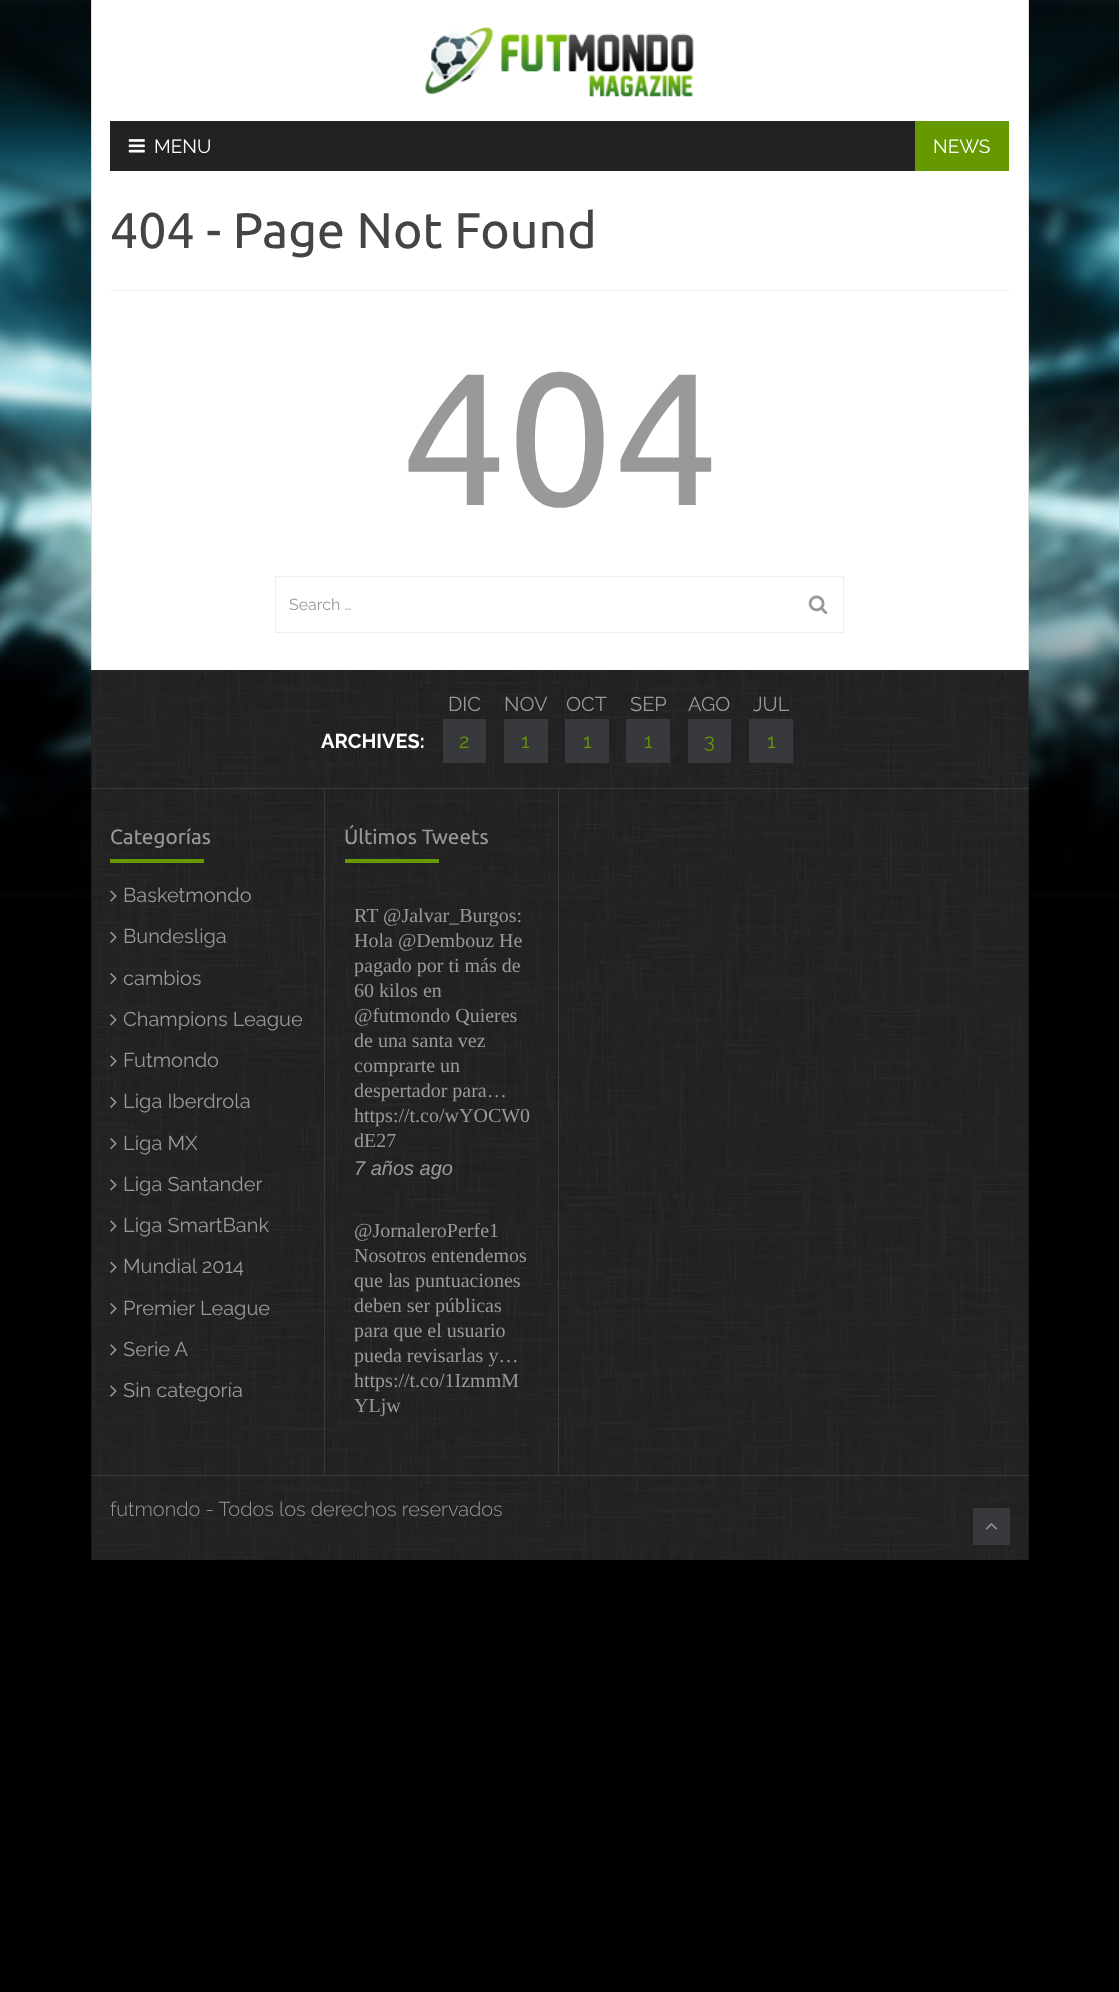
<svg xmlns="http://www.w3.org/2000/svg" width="1119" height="1992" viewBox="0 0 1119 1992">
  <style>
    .t1 { font: 19px Raleway; fill: #fff; }
    .t2 { font: 50px Ubuntu; fill: #444; }
    .t3 { font: 188px Ubuntu; fill: #999; }
    .t4 { font: 16px Raleway; fill: #999; }
    .t5 { font: bold 20px Raleway; fill: #fff; }
    .t6 { font: 20px Raleway; fill: #999; }
    .t7 { font: 20px Raleway; fill: #690; }
    .t8 { font: 20.75px Ubuntu; fill: #999; }
    .t9 { font: 20px Liberation Serif; fill: #999; }
    .t10 { font: italic 20px Liberation Sans; fill: #999; }
    .t11 { font: 300 20px Raleway; fill: #999; }
  </style>
  <rect width="100%" height="100%" fill="#000"/>
  <image x="0" y="0" width="1119" height="898" href="images/1.png"/>
  <rect x="92" y="0" width="936" height="670" fill="#fff"/>
  <rect x="1028" y="0" width="1" height="670" fill="#dfdfdf"/>
  <rect x="91" y="0" width="1" height="670" fill="#dfdfdf"/>
  <image x="424" y="27" width="270" height="70" href="images/2.png"/>
  <rect x="110" y="121" width="805" height="50" fill="#222"/>
  <image x="128" y="139" width="17" height="14" href="images/3.png"/>
  <text x="154" y="153" class="t1">MENU</text>
  <rect x="915" y="121" width="94" height="50" fill="#690"/>
  <text x="933" y="153" class="t1">NEWS</text>
  <rect x="110" y="290" width="899" height="1" fill="#efefef"/>
  <text x="110" y="248" class="t2">404 - Page Not Found</text>
  <text x="401" y="505" class="t3">404</text>
  <rect x="275.5" y="576.5" width="568" height="56" fill="none" stroke="#efefef"/>
  <text x="289" y="610" class="t4">Search …</text>
  <image x="808" y="595" width="20" height="19" href="images/4.png"/>
  <image x="91" y="670" width="938" height="890" href="images/5.png"/>
  <rect x="91" y="788" width="938" height="1" fill="#38393d"/>
  <text x="321" y="748" class="t5">ARCHIVES:</text>
  <text x="448" y="711" class="t6">DIC</text>
  <rect x="443" y="719" width="43" height="44" fill="#38393d"/>
  <text x="459" y="748" class="t7">2</text>
  <text x="504" y="711" class="t6">NOV</text>
  <rect x="504" y="719" width="44" height="44" fill="#38393d"/>
  <text x="521" y="748" class="t7">1</text>
  <text x="566" y="711" class="t6">OCT</text>
  <rect x="565" y="719" width="44" height="44" fill="#38393d"/>
  <text x="583" y="748" class="t7">1</text>
  <text x="630" y="711" class="t6">SEP</text>
  <rect x="626" y="719" width="44" height="44" fill="#38393d"/>
  <text x="644" y="748" class="t7">1</text>
  <text x="688" y="711" class="t6">AGO</text>
  <rect x="688" y="719" width="43" height="44" fill="#38393d"/>
  <text x="704" y="748" class="t7">3</text>
  <text x="753" y="711" class="t6">JUL</text>
  <rect x="749" y="719" width="44" height="44" fill="#38393d"/>
  <text x="767" y="748" class="t7">1</text>
  <rect x="91" y="1475" width="938" height="1" fill="#38393d"/>
  <text x="110" y="844" class="t8">Categorías</text>
  <rect x="110" y="859" width="94" height="4" fill="#690"/>
  <image x="110" y="890" width="7" height="12" href="images/6.png"/>
  <text x="123" y="902" class="t6">Basketmondo</text>
  <image x="110" y="931" width="7" height="12" href="images/7.png"/>
  <text x="123" y="943" class="t6">Bundesliga</text>
  <image x="110" y="973" width="7" height="11" href="images/8.png"/>
  <text x="123" y="985" class="t6">cambios</text>
  <image x="110" y="1014" width="7" height="12" href="images/9.png"/>
  <text x="123" y="1026" class="t6">Champions League</text>
  <image x="110" y="1055" width="7" height="12" href="images/10.png"/>
  <text x="123" y="1067" class="t6">Futmondo</text>
  <image x="110" y="1096" width="7" height="12" href="images/11.png"/>
  <text x="123" y="1108" class="t6">Liga Iberdrola</text>
  <image x="110" y="1138" width="7" height="11" href="images/12.png"/>
  <text x="123" y="1150" class="t6">Liga MX</text>
  <image x="110" y="1179" width="7" height="12" href="images/13.png"/>
  <text x="123" y="1191" class="t6">Liga Santander</text>
  <image x="110" y="1220" width="7" height="12" href="images/14.png"/>
  <text x="123" y="1232" class="t6">Liga SmartBank</text>
  <image x="110" y="1261" width="7" height="12" href="images/15.png"/>
  <text x="123" y="1273" class="t6">Mundial 2014</text>
  <image x="110" y="1303" width="7" height="11" href="images/16.png"/>
  <text x="123" y="1315" class="t6">Premier League</text>
  <image x="110" y="1344" width="7" height="12" href="images/17.png"/>
  <text x="123" y="1356" class="t6">Serie A</text>
  <image x="110" y="1385" width="7" height="12" href="images/18.png"/>
  <text x="123" y="1397" class="t6">Sin categoría</text>
  <rect x="324" y="789" width="1" height="686" fill="#38393d"/>
  <text x="344" y="844" class="t8">Últimos Tweets</text>
  <rect x="345" y="859" width="94" height="4" fill="#690"/>
  <text x="354" y="922" class="t9">RT @Jalvar_Burgos:</text>
  <text x="354" y="947" class="t9">Hola @Dembouz He</text>
  <text x="354" y="972" class="t9">pagado por ti más de</text>
  <text x="354" y="997" class="t9">60 kilos en</text>
  <text x="354" y="1022" class="t9">@futmondo Quieres</text>
  <text x="354" y="1047" class="t9">de una santa vez</text>
  <text x="354" y="1072" class="t9">comprarte un</text>
  <text x="354" y="1097" class="t9">despertador para…</text>
  <text x="354" y="1122" class="t9">https://t.co/wYOCW0</text>
  <text x="354" y="1147" class="t9">dE27</text>
  <text x="354" y="1175" class="t10">7 años ago</text>
  <text x="354" y="1237" class="t9">@JornaleroPerfe1</text>
  <text x="354" y="1262" class="t9">Nosotros entendemos</text>
  <text x="354" y="1287" class="t9">que las puntuaciones</text>
  <text x="354" y="1312" class="t9">deben ser públicas</text>
  <text x="354" y="1337" class="t9">para que el usuario</text>
  <text x="354" y="1362" class="t9">pueda revisarlas y…</text>
  <text x="354" y="1387" class="t9">https://t.co/1IzmmM</text>
  <text x="354" y="1412" class="t9">YLjw</text>
  <rect x="558" y="789" width="1" height="686" fill="#38393d"/>
  <text x="110" y="1516" class="t11">futmondo - Todos los derechos reservados</text>
  <rect x="973" y="1508" width="37" height="37" fill="#38393d"/>
  <image x="985" y="1523" width="12" height="7" href="images/19.png"/>
</svg>
